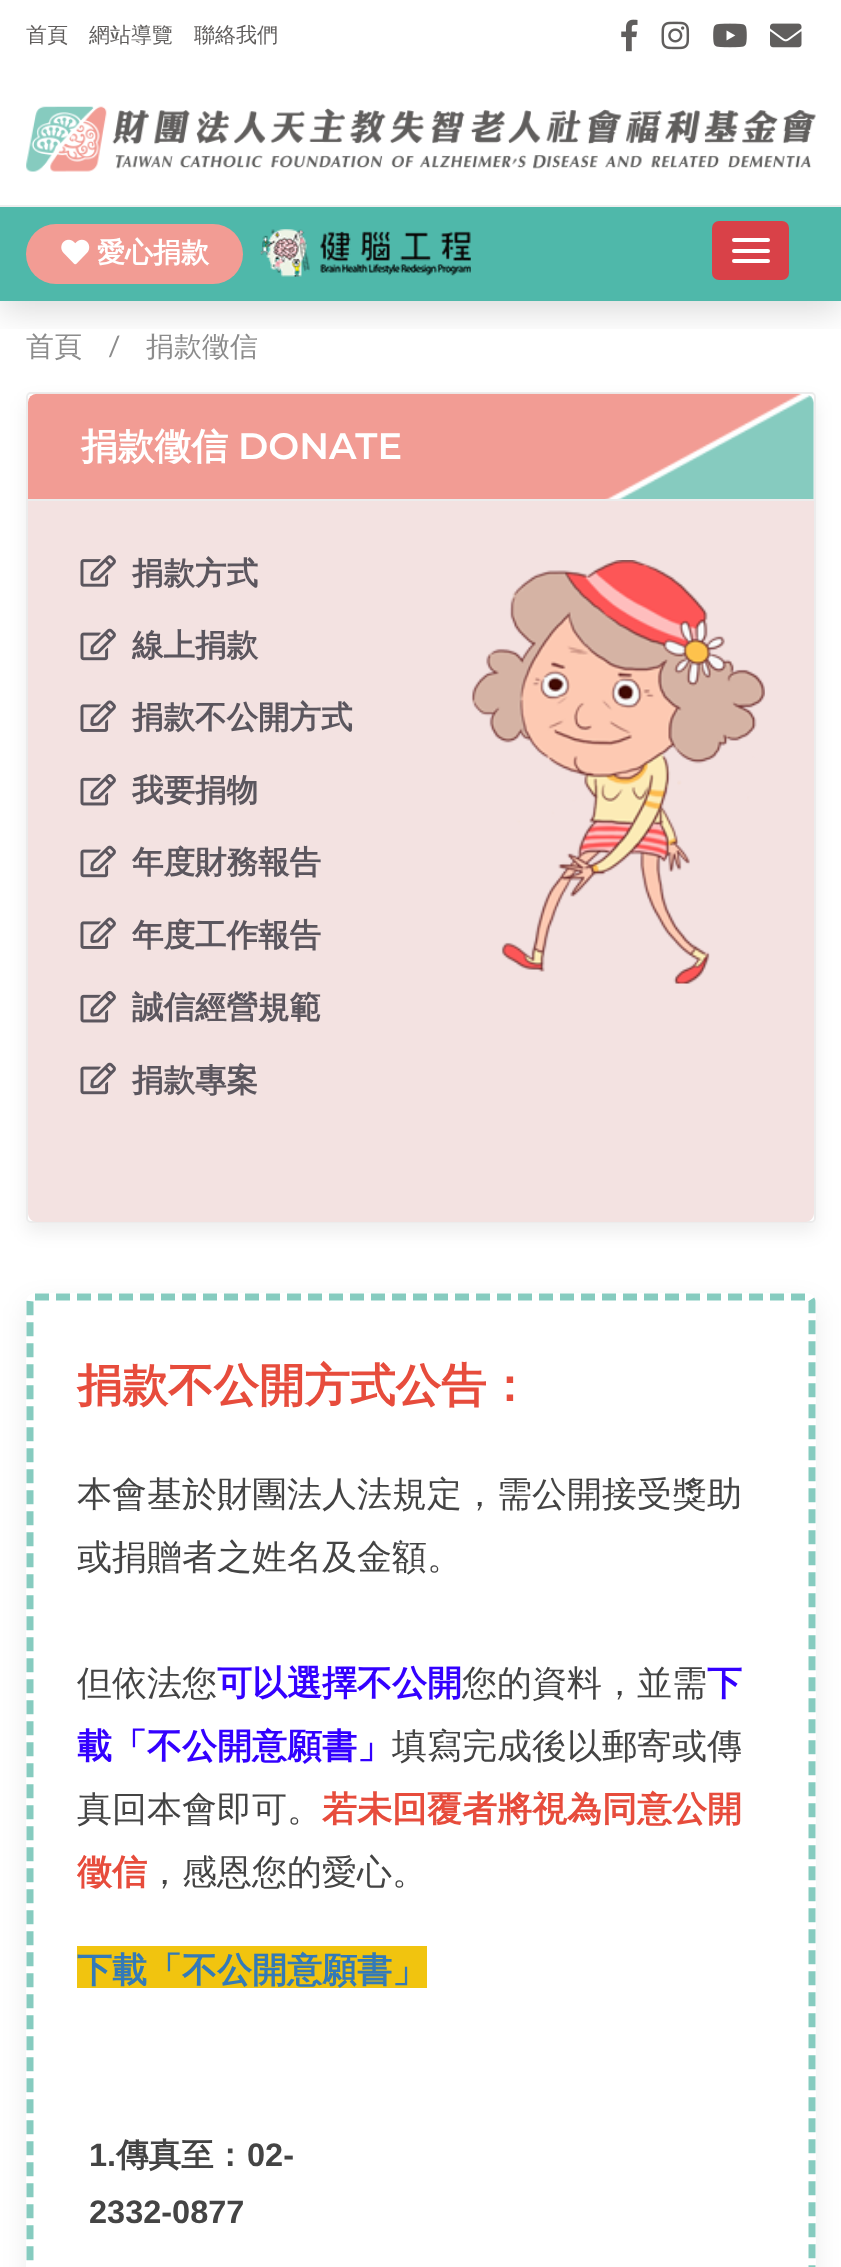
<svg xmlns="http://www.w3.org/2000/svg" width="841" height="2267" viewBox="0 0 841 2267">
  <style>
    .t1 { font: 500 21px WenQuanYi Zen Hei; fill: #605e5d; }
    .t2 { font: bold 28px WenQuanYi Zen Hei; fill: #fff; }
    .t3 { font: 500 28px WenQuanYi Zen Hei; fill: #8c8c8c; }
    .t4 { font: 28px Lato; fill: #8c8c8c; }
    .t5 { font: bold 36.75px WenQuanYi Zen Hei; fill: #fff; }
    .t6 { font: 600 36.75px Montserrat; fill: #fff; }
    .t7 { font: bold 31.5px WenQuanYi Zen Hei; fill: #5b565e; }
    .t8 { font: bold 45.5px WenQuanYi Zen Hei; fill: #e74c3c; }
    .t9 { font: 500 35px WenQuanYi Zen Hei; fill: #444; }
    .t10 { font: bold 35px WenQuanYi Zen Hei; fill: #30f; }
    .t11 { font: bold 35px WenQuanYi Zen Hei; fill: #e74c3c; }
    .t12 { font: bold 35px WenQuanYi Zen Hei; fill: #337ab7; }
    .t13 { font: bold 32.5px Liberation Sans; fill: #444; }
    .t14 { font: bold 32.5px WenQuanYi Zen Hei; fill: #444; }
  </style>
  <defs>
    <clipPath id="clip1"><rect x="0" y="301" width="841" height="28"/></clipPath>
  </defs>
  <rect width="100%" height="100%" fill="#fff"/>
  <g clip-path="url(#clip1)">
    <rect x="0" y="9" width="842" height="301" fill="#00000026" filter="blur(17.5px)"/>
  </g>
  <text x="26" y="42" class="t1">首頁</text>
  <text x="89" y="42" class="t1">網站導覽</text>
  <text x="194" y="42" class="t1">聯絡我們</text>
  <image x="621" y="19" width="17" height="33" href="images/1.png"/>
  <image x="661" y="21" width="29" height="29" href="images/2.png"/>
  <image x="713" y="23" width="34" height="25" href="images/3.png"/>
  <image x="770" y="23" width="32" height="25" href="images/4.png"/>
  <image x="26" y="106" width="790" height="66" href="images/5.png"/>
  <rect x="0" y="207" width="841" height="94" fill="#4fb8aa"/>
  <rect x="0" y="205" width="841" height="2" fill="#eee"/>
  <rect x="26" y="224" width="217" height="60" rx="30" fill="#f29c94"/>
  <image x="61" y="239" width="29" height="26" href="images/6.png"/>
  <text x="97" y="262" class="t2">愛心捐款</text>
  <image x="260" y="229" width="211" height="48" href="images/7.png"/>
  <rect x="712" y="221" width="77" height="59" rx="7" fill="#d94148"/>
  <rect x="732" y="238" width="38" height="4" rx="2" fill="#fff"/>
  <rect x="732" y="249" width="38" height="4" rx="2" fill="#fff"/>
  <rect x="732" y="259" width="38" height="4" rx="2" fill="#fff"/>
  <text x="26" y="356" class="t3">首頁</text>
  <text x="109" y="356" class="t4">/</text>
  <text x="146" y="356" class="t3">捐款徵信</text>
  <rect x="26" y="401" width="790" height="831" rx="5" fill="#00000012" filter="blur(9px)"/>
  <rect x="27" y="393" width="788" height="829" rx="4" fill="#fff" stroke="#ececec" stroke-width="2"/>
  <image x="28" y="393" width="786" height="106" href="images/8.png"/>
  <rect x="28" y="499" width="786" height="2" fill="#ececec"/>
  <text x="81" y="459" class="t5">捐款徵信</text>
  <text x="238" y="459" class="t6">DONATE</text>
  <path d="M28 501H814V1213C814 1218 810 1222 805 1222H37C32 1222 28 1218 28 1213Z" fill="#f3e2e1"/>
  <image x="471" y="560" width="294" height="424" href="images/9.png"/>
  <image x="80" y="555" width="36" height="32" href="images/10.png"/>
  <text x="132" y="584" class="t7">捐款方式</text>
  <image x="80" y="628" width="36" height="33" href="images/11.png"/>
  <text x="132" y="656" class="t7">線上捐款</text>
  <image x="80" y="700" width="36" height="32" href="images/12.png"/>
  <text x="132" y="728" class="t7">捐款不公開方式</text>
  <image x="80" y="774" width="36" height="32" href="images/13.png"/>
  <text x="132" y="801" class="t7">我要捐物</text>
  <image x="80" y="845" width="36" height="33" href="images/11.png"/>
  <text x="132" y="873" class="t7">年度財務報告</text>
  <image x="80" y="917" width="36" height="32" href="images/12.png"/>
  <text x="132" y="946" class="t7">年度工作報告</text>
  <image x="80" y="991" width="36" height="32" href="images/13.png"/>
  <text x="132" y="1018" class="t7">誠信經營規範</text>
  <image x="80" y="1062" width="36" height="33" href="images/11.png"/>
  <text x="132" y="1091" class="t7">捐款專案</text>
  <rect x="26" y="1302" width="790" height="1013" rx="9" fill="#00000012" filter="blur(13px)"/>
  <rect x="26" y="1293" width="790" height="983" rx="9" fill="#fff"/>
  <path d="M35 1297H807C809.5 1297 812 1299 812 1302V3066C812 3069 809.5 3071 807 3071H35C32 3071 30 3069 30 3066V1302C30 1299 32 1297 35 1297Z" fill="none" stroke="#86cbbf" stroke-width="7" stroke-dasharray="14 7"/>
  <text x="77" y="1401" class="t8">捐款不公開方式公告：</text>
  <text x="77" y="1506" class="t9">本會基於財團法人法規定，需公開接受獎助</text>
  <text x="77" y="1569" class="t9">或捐贈者之姓名及金額。</text>
  <text x="77" y="1695" class="t9">但依法您</text>
  <text x="217" y="1695" class="t10">可以選擇不公開</text>
  <text x="462" y="1695" class="t9">您的資料，並需</text>
  <text x="707" y="1695" class="t10">下</text>
  <text x="77" y="1758" class="t10">載「不公開意願書」</text>
  <text x="392" y="1758" class="t9">填寫完成後以郵寄或傳</text>
  <text x="77" y="1821" class="t9">真回本會即可。</text>
  <text x="322" y="1821" class="t11">若未回覆者將視為同意公開</text>
  <text x="77" y="1884" class="t11">徵信</text>
  <text x="147" y="1884" class="t9">，感恩您的愛心。</text>
  <rect x="77" y="1946" width="350" height="42" fill="#f1c40f"/>
  <text x="77" y="1982" class="t12">下載「不公開意願書」</text>
  <text x="89" y="2166" class="t13">1.</text>
  <text x="116" y="2166" class="t14">傳真至：</text>
  <text x="247" y="2166" class="t13">02-</text>
  <text x="89" y="2223" class="t13">2332-0877</text>
</svg>
